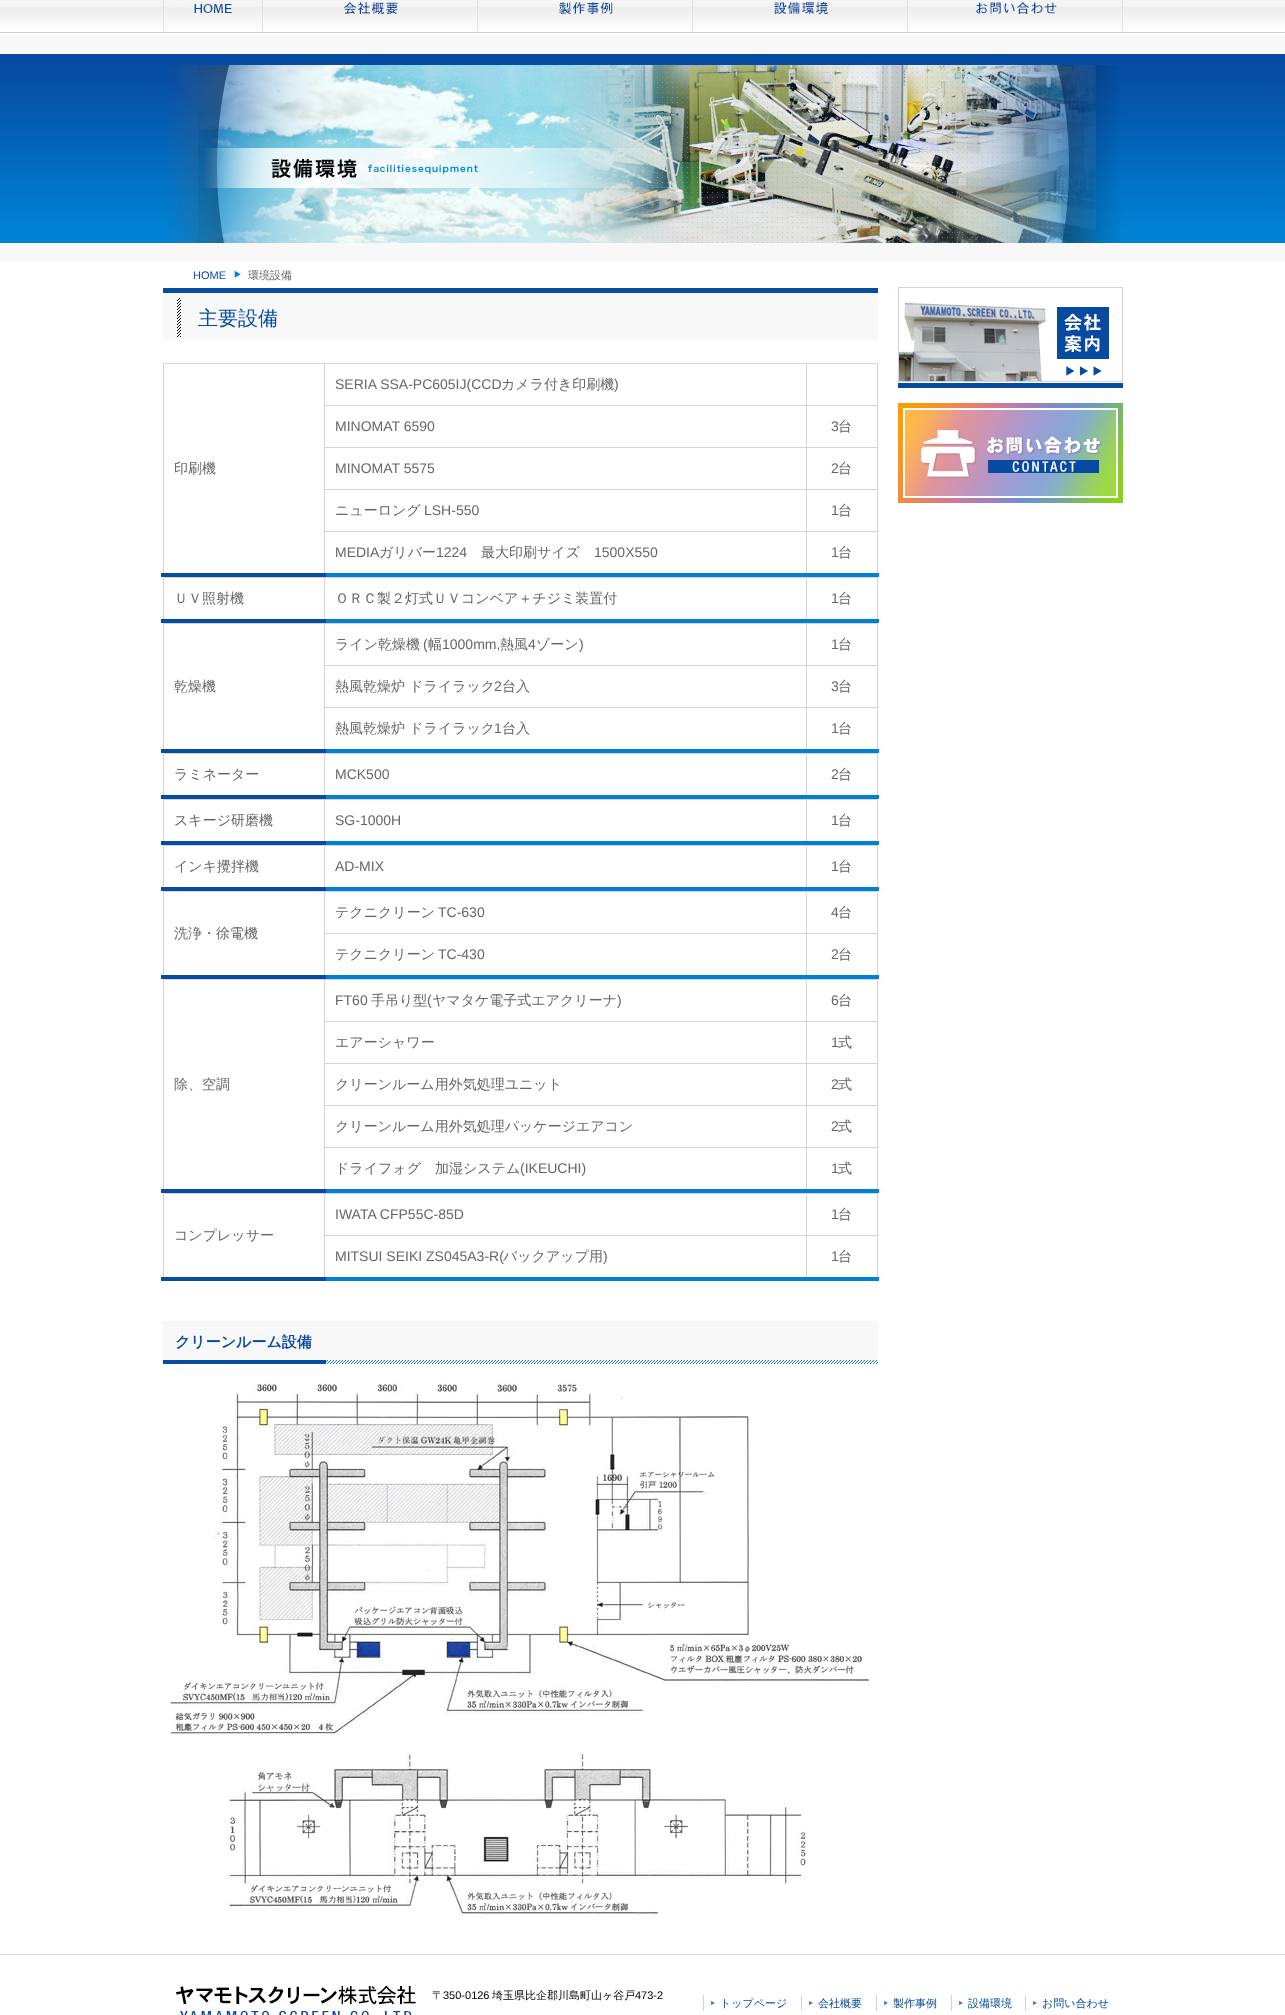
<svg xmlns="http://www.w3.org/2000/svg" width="1285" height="2015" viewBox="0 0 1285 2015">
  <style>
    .t1 { font: 11px Liberation Sans; fill: #064ba1; }
    .t2 { font: 500 11px WenQuanYi Zen Hei; fill: #666; }
    .t3 { font: 500 20px WenQuanYi Zen Hei; fill: #064ba1; }
    .t4 { font: 14px Liberation Sans; fill: #666; }
    .t5 { font: 500 14px WenQuanYi Zen Hei; fill: #666; }
    .t6 { font: bold 15px WenQuanYi Zen Hei; fill: #064ba1; }
    .t7 { font: 500 11px WenQuanYi Zen Hei; fill: #000; }
    .t8 { font: 11px Liberation Sans; fill: #000; }
    .t9 { font: 500 11px WenQuanYi Zen Hei; fill: #064ba1; }
  </style>
  <rect width="100%" height="100%" fill="#fff"/>
  <image x="0" y="0" width="1285" height="33" href="images/1.png"/>
  <image x="163" y="0" width="100" height="31" href="images/2.png"/>
  <image x="344" y="0" width="134" height="31" href="images/3.png"/>
  <image x="559" y="0" width="134" height="31" href="images/4.png"/>
  <image x="774" y="0" width="134" height="31" href="images/5.png"/>
  <image x="976" y="0" width="147" height="31" href="images/6.png"/>
  <image x="0" y="35" width="1285" height="227" href="images/7.png"/>
  <image x="168" y="62" width="953" height="181" href="images/8.png"/>
  <image x="234" y="270" width="7" height="8" href="images/9.png"/>
  <text x="193" y="279" class="t1">HOME</text>
  <text x="248" y="279" class="t2">環境設備</text>
  <rect x="163" y="293" width="715" height="47" fill="#f8f8f8"/>
  <rect x="163" y="288" width="715" height="5" fill="#064ca2"/>
  <image x="177" y="298" width="4" height="39" href="images/10.png"/>
  <text x="198" y="325" class="t3">主要設備</text>
  <rect x="806" y="363" width="72" height="1" fill="#d4d4d4"/>
  <rect x="806" y="405" width="72" height="1" fill="#d4d4d4"/>
  <rect x="806" y="447" width="72" height="1" fill="#d4d4d4"/>
  <rect x="806" y="489" width="72" height="1" fill="#d4d4d4"/>
  <rect x="806" y="531" width="72" height="1" fill="#d4d4d4"/>
  <rect x="806" y="531" width="1" height="45" fill="#d4d4d4"/>
  <rect x="324" y="531" width="483" height="1" fill="#d4d4d4"/>
  <rect x="806" y="489" width="1" height="43" fill="#d4d4d4"/>
  <rect x="324" y="489" width="483" height="1" fill="#d4d4d4"/>
  <rect x="806" y="447" width="1" height="43" fill="#d4d4d4"/>
  <rect x="324" y="447" width="483" height="1" fill="#d4d4d4"/>
  <rect x="806" y="405" width="1" height="43" fill="#d4d4d4"/>
  <rect x="324" y="405" width="483" height="1" fill="#d4d4d4"/>
  <rect x="806" y="363" width="1" height="43" fill="#d4d4d4"/>
  <rect x="324" y="363" width="483" height="1" fill="#d4d4d4"/>
  <rect x="324" y="531" width="1" height="45" fill="#d4d4d4"/>
  <rect x="324" y="489" width="1" height="43" fill="#d4d4d4"/>
  <rect x="324" y="447" width="1" height="43" fill="#d4d4d4"/>
  <rect x="324" y="405" width="1" height="43" fill="#d4d4d4"/>
  <rect x="324" y="363" width="1" height="43" fill="#d4d4d4"/>
  <text x="335" y="389" class="t4">SERIA SSA-PC605IJ(CCD</text>
  <text x="501" y="389" class="t5">カメラ付き印刷機</text>
  <text x="614" y="389" class="t4">)</text>
  <rect x="877" y="531" width="1" height="45" fill="#d4d4d4"/>
  <rect x="877" y="489" width="1" height="43" fill="#d4d4d4"/>
  <rect x="877" y="447" width="1" height="43" fill="#d4d4d4"/>
  <rect x="877" y="405" width="1" height="43" fill="#d4d4d4"/>
  <rect x="877" y="363" width="1" height="43" fill="#d4d4d4"/>
  <rect x="163" y="363" width="162" height="1" fill="#d4d4d4"/>
  <rect x="163" y="363" width="1" height="213" fill="#d4d4d4"/>
  <rect x="161" y="573" width="165" height="4" fill="#064ca2"/>
  <text x="174" y="473" class="t5">印刷機</text>
  <text x="335" y="431" class="t4">MINOMAT 6590</text>
  <text x="831" y="431" class="t4">3</text>
  <text x="838" y="431" class="t5">台</text>
  <text x="335" y="473" class="t4">MINOMAT 5575</text>
  <text x="831" y="473" class="t4">2</text>
  <text x="838" y="473" class="t5">台</text>
  <text x="335" y="515" class="t5">ニューロング</text>
  <text x="424" y="515" class="t4">LSH-550</text>
  <text x="831" y="515" class="t4">1</text>
  <text x="838" y="515" class="t5">台</text>
  <rect x="326" y="573" width="553" height="4" fill="#0082d4"/>
  <text x="335" y="557" class="t4">MEDIA</text>
  <text x="379" y="557" class="t5">ガリバー</text>
  <text x="436" y="557" class="t4">1224</text>
  <text x="481" y="557" class="t5">最大印刷サイズ</text>
  <text x="594" y="557" class="t4">1500X550</text>
  <text x="831" y="557" class="t4">1</text>
  <text x="838" y="557" class="t5">台</text>
  <rect x="806" y="577" width="72" height="1" fill="#d4d4d4"/>
  <rect x="877" y="577" width="1" height="45" fill="#d4d4d4"/>
  <rect x="806" y="577" width="1" height="45" fill="#d4d4d4"/>
  <rect x="326" y="619" width="553" height="4" fill="#0082d4"/>
  <rect x="324" y="577" width="483" height="1" fill="#d4d4d4"/>
  <rect x="324" y="577" width="1" height="45" fill="#d4d4d4"/>
  <rect x="163" y="577" width="162" height="1" fill="#d4d4d4"/>
  <rect x="163" y="577" width="1" height="45" fill="#d4d4d4"/>
  <rect x="161" y="619" width="165" height="4" fill="#064ca2"/>
  <text x="174" y="603" class="t5">ＵＶ照射機</text>
  <text x="335" y="603" class="t5">ＯＲＣ製２灯式ＵＶコンベア＋チジミ装置付</text>
  <text x="831" y="603" class="t4">1</text>
  <text x="838" y="603" class="t5">台</text>
  <rect x="806" y="623" width="72" height="1" fill="#d4d4d4"/>
  <rect x="806" y="665" width="72" height="1" fill="#d4d4d4"/>
  <rect x="806" y="707" width="72" height="1" fill="#d4d4d4"/>
  <rect x="806" y="707" width="1" height="45" fill="#d4d4d4"/>
  <rect x="324" y="707" width="483" height="1" fill="#d4d4d4"/>
  <rect x="806" y="665" width="1" height="43" fill="#d4d4d4"/>
  <rect x="324" y="665" width="483" height="1" fill="#d4d4d4"/>
  <rect x="806" y="623" width="1" height="43" fill="#d4d4d4"/>
  <rect x="324" y="623" width="483" height="1" fill="#d4d4d4"/>
  <rect x="324" y="707" width="1" height="45" fill="#d4d4d4"/>
  <rect x="324" y="665" width="1" height="43" fill="#d4d4d4"/>
  <rect x="324" y="623" width="1" height="43" fill="#d4d4d4"/>
  <text x="335" y="649" class="t5">ライン乾燥機</text>
  <text x="423" y="649" class="t4">(</text>
  <text x="428" y="649" class="t5">幅</text>
  <text x="442" y="649" class="t4">1000mm,</text>
  <text x="500" y="649" class="t5">熱風</text>
  <text x="528" y="649" class="t4">4</text>
  <text x="536" y="649" class="t5">ゾーン</text>
  <text x="579" y="649" class="t4">)</text>
  <rect x="877" y="707" width="1" height="45" fill="#d4d4d4"/>
  <rect x="877" y="665" width="1" height="43" fill="#d4d4d4"/>
  <rect x="877" y="623" width="1" height="43" fill="#d4d4d4"/>
  <text x="831" y="649" class="t4">1</text>
  <text x="838" y="649" class="t5">台</text>
  <rect x="163" y="623" width="162" height="1" fill="#d4d4d4"/>
  <rect x="163" y="623" width="1" height="129" fill="#d4d4d4"/>
  <rect x="161" y="749" width="165" height="4" fill="#064ca2"/>
  <text x="174" y="691" class="t5">乾燥機</text>
  <text x="335" y="691" class="t5">熱風乾燥炉 ドライラック</text>
  <text x="494" y="691" class="t4">2</text>
  <text x="502" y="691" class="t5">台入</text>
  <text x="831" y="691" class="t4">3</text>
  <text x="838" y="691" class="t5">台</text>
  <rect x="326" y="749" width="553" height="4" fill="#0082d4"/>
  <text x="335" y="733" class="t5">熱風乾燥炉 ドライラック</text>
  <text x="494" y="733" class="t4">1</text>
  <text x="502" y="733" class="t5">台入</text>
  <text x="831" y="733" class="t4">1</text>
  <text x="838" y="733" class="t5">台</text>
  <rect x="806" y="753" width="72" height="1" fill="#d4d4d4"/>
  <rect x="877" y="753" width="1" height="45" fill="#d4d4d4"/>
  <rect x="806" y="753" width="1" height="45" fill="#d4d4d4"/>
  <rect x="326" y="795" width="553" height="4" fill="#0082d4"/>
  <rect x="324" y="753" width="483" height="1" fill="#d4d4d4"/>
  <rect x="324" y="753" width="1" height="45" fill="#d4d4d4"/>
  <rect x="163" y="753" width="162" height="1" fill="#d4d4d4"/>
  <rect x="163" y="753" width="1" height="45" fill="#d4d4d4"/>
  <rect x="161" y="795" width="165" height="4" fill="#064ca2"/>
  <text x="174" y="779" class="t5">ラミネーター</text>
  <text x="335" y="779" class="t4">MCK500</text>
  <text x="831" y="779" class="t4">2</text>
  <text x="838" y="779" class="t5">台</text>
  <rect x="806" y="799" width="72" height="1" fill="#d4d4d4"/>
  <rect x="877" y="799" width="1" height="45" fill="#d4d4d4"/>
  <rect x="806" y="799" width="1" height="45" fill="#d4d4d4"/>
  <rect x="326" y="841" width="553" height="4" fill="#0082d4"/>
  <rect x="324" y="799" width="483" height="1" fill="#d4d4d4"/>
  <rect x="324" y="799" width="1" height="45" fill="#d4d4d4"/>
  <rect x="163" y="799" width="162" height="1" fill="#d4d4d4"/>
  <rect x="163" y="799" width="1" height="45" fill="#d4d4d4"/>
  <rect x="161" y="841" width="165" height="4" fill="#064ca2"/>
  <text x="174" y="825" class="t5">スキージ研磨機</text>
  <text x="335" y="825" class="t4">SG-1000H</text>
  <text x="831" y="825" class="t4">1</text>
  <text x="838" y="825" class="t5">台</text>
  <rect x="806" y="845" width="72" height="1" fill="#d4d4d4"/>
  <rect x="877" y="845" width="1" height="45" fill="#d4d4d4"/>
  <rect x="806" y="845" width="1" height="45" fill="#d4d4d4"/>
  <rect x="326" y="887" width="553" height="4" fill="#0082d4"/>
  <rect x="324" y="845" width="483" height="1" fill="#d4d4d4"/>
  <rect x="324" y="845" width="1" height="45" fill="#d4d4d4"/>
  <rect x="163" y="845" width="162" height="1" fill="#d4d4d4"/>
  <rect x="163" y="845" width="1" height="45" fill="#d4d4d4"/>
  <rect x="161" y="887" width="165" height="4" fill="#064ca2"/>
  <text x="174" y="871" class="t5">インキ攪拌機</text>
  <text x="335" y="871" class="t4">AD-MIX</text>
  <text x="831" y="871" class="t4">1</text>
  <text x="838" y="871" class="t5">台</text>
  <rect x="806" y="891" width="72" height="1" fill="#d4d4d4"/>
  <rect x="806" y="933" width="72" height="1" fill="#d4d4d4"/>
  <rect x="806" y="933" width="1" height="45" fill="#d4d4d4"/>
  <rect x="324" y="933" width="483" height="1" fill="#d4d4d4"/>
  <rect x="806" y="891" width="1" height="43" fill="#d4d4d4"/>
  <rect x="324" y="891" width="483" height="1" fill="#d4d4d4"/>
  <rect x="324" y="933" width="1" height="45" fill="#d4d4d4"/>
  <rect x="324" y="891" width="1" height="43" fill="#d4d4d4"/>
  <text x="335" y="917" class="t5">テクニクリーン</text>
  <text x="438" y="917" class="t4">TC-630</text>
  <rect x="877" y="933" width="1" height="45" fill="#d4d4d4"/>
  <rect x="877" y="891" width="1" height="43" fill="#d4d4d4"/>
  <text x="831" y="917" class="t4">4</text>
  <text x="838" y="917" class="t5">台</text>
  <rect x="163" y="891" width="162" height="1" fill="#d4d4d4"/>
  <rect x="163" y="891" width="1" height="87" fill="#d4d4d4"/>
  <rect x="161" y="975" width="165" height="4" fill="#064ca2"/>
  <text x="174" y="938" class="t5">洗浄・徐電機</text>
  <rect x="326" y="975" width="553" height="4" fill="#0082d4"/>
  <text x="335" y="959" class="t5">テクニクリーン</text>
  <text x="438" y="959" class="t4">TC-430</text>
  <text x="831" y="959" class="t4">2</text>
  <text x="838" y="959" class="t5">台</text>
  <rect x="806" y="979" width="72" height="1" fill="#d4d4d4"/>
  <rect x="806" y="1021" width="72" height="1" fill="#d4d4d4"/>
  <rect x="806" y="1063" width="72" height="1" fill="#d4d4d4"/>
  <rect x="806" y="1105" width="72" height="1" fill="#d4d4d4"/>
  <rect x="806" y="1147" width="72" height="1" fill="#d4d4d4"/>
  <rect x="806" y="1147" width="1" height="45" fill="#d4d4d4"/>
  <rect x="324" y="1147" width="483" height="1" fill="#d4d4d4"/>
  <rect x="806" y="1105" width="1" height="43" fill="#d4d4d4"/>
  <rect x="324" y="1105" width="483" height="1" fill="#d4d4d4"/>
  <rect x="806" y="1063" width="1" height="43" fill="#d4d4d4"/>
  <rect x="324" y="1063" width="483" height="1" fill="#d4d4d4"/>
  <rect x="806" y="1021" width="1" height="43" fill="#d4d4d4"/>
  <rect x="324" y="1021" width="483" height="1" fill="#d4d4d4"/>
  <rect x="806" y="979" width="1" height="43" fill="#d4d4d4"/>
  <rect x="324" y="979" width="483" height="1" fill="#d4d4d4"/>
  <rect x="324" y="1147" width="1" height="45" fill="#d4d4d4"/>
  <rect x="324" y="1105" width="1" height="43" fill="#d4d4d4"/>
  <rect x="324" y="1063" width="1" height="43" fill="#d4d4d4"/>
  <rect x="324" y="1021" width="1" height="43" fill="#d4d4d4"/>
  <rect x="324" y="979" width="1" height="43" fill="#d4d4d4"/>
  <text x="335" y="1005" class="t4">FT60</text>
  <text x="371" y="1005" class="t5">手吊り型</text>
  <text x="427" y="1005" class="t4">(</text>
  <text x="432" y="1005" class="t5">ヤマタケ電子式エアクリーナ</text>
  <text x="617" y="1005" class="t4">)</text>
  <rect x="877" y="1147" width="1" height="45" fill="#d4d4d4"/>
  <rect x="877" y="1105" width="1" height="43" fill="#d4d4d4"/>
  <rect x="877" y="1063" width="1" height="43" fill="#d4d4d4"/>
  <rect x="877" y="1021" width="1" height="43" fill="#d4d4d4"/>
  <rect x="877" y="979" width="1" height="43" fill="#d4d4d4"/>
  <text x="831" y="1005" class="t4">6</text>
  <text x="838" y="1005" class="t5">台</text>
  <rect x="163" y="979" width="162" height="1" fill="#d4d4d4"/>
  <rect x="163" y="979" width="1" height="213" fill="#d4d4d4"/>
  <rect x="161" y="1189" width="165" height="4" fill="#064ca2"/>
  <text x="174" y="1089" class="t5">除、空調</text>
  <text x="335" y="1047" class="t5">エアーシャワー</text>
  <text x="831" y="1047" class="t4">1</text>
  <text x="838" y="1047" class="t5">式</text>
  <text x="335" y="1089" class="t5">クリーンルーム用外気処理ユニット</text>
  <text x="831" y="1089" class="t4">2</text>
  <text x="838" y="1089" class="t5">式</text>
  <text x="335" y="1131" class="t5">クリーンルーム用外気処理パッケージエアコン</text>
  <text x="831" y="1131" class="t4">2</text>
  <text x="838" y="1131" class="t5">式</text>
  <rect x="326" y="1189" width="553" height="4" fill="#0082d4"/>
  <text x="335" y="1173" class="t5">ドライフォグ　加湿システム</text>
  <text x="520" y="1173" class="t4">(IKEUCHI)</text>
  <text x="831" y="1173" class="t4">1</text>
  <text x="838" y="1173" class="t5">式</text>
  <rect x="806" y="1193" width="72" height="1" fill="#d4d4d4"/>
  <rect x="806" y="1235" width="72" height="1" fill="#d4d4d4"/>
  <rect x="806" y="1235" width="1" height="45" fill="#d4d4d4"/>
  <rect x="324" y="1235" width="483" height="1" fill="#d4d4d4"/>
  <rect x="806" y="1193" width="1" height="43" fill="#d4d4d4"/>
  <rect x="324" y="1193" width="483" height="1" fill="#d4d4d4"/>
  <rect x="324" y="1235" width="1" height="45" fill="#d4d4d4"/>
  <rect x="324" y="1193" width="1" height="43" fill="#d4d4d4"/>
  <text x="335" y="1219" class="t4">IWATA CFP55C-85D</text>
  <rect x="877" y="1235" width="1" height="45" fill="#d4d4d4"/>
  <rect x="877" y="1193" width="1" height="43" fill="#d4d4d4"/>
  <text x="831" y="1219" class="t4">1</text>
  <text x="838" y="1219" class="t5">台</text>
  <rect x="163" y="1193" width="162" height="1" fill="#d4d4d4"/>
  <rect x="163" y="1193" width="1" height="87" fill="#d4d4d4"/>
  <rect x="161" y="1277" width="165" height="4" fill="#064ca2"/>
  <text x="174" y="1240" class="t5">コンプレッサー</text>
  <rect x="326" y="1277" width="553" height="4" fill="#0082d4"/>
  <text x="335" y="1261" class="t4">MITSUI SEIKI ZS045A3-R(</text>
  <text x="503" y="1261" class="t5">バックアップ用</text>
  <text x="603" y="1261" class="t4">)</text>
  <text x="831" y="1261" class="t4">1</text>
  <text x="838" y="1261" class="t5">台</text>
  <rect x="163" y="1321" width="715" height="39" fill="#f8f8f8"/>
  <image x="163" y="1360" width="715" height="4" href="images/11.png"/>
  <text x="175" y="1347" class="t6">クリーンルーム設備</text>
  <image x="168" y="1380" width="702" height="535" href="images/12.png"/>
  <image x="898" y="287" width="225" height="101" href="images/13.png"/>
  <image x="898" y="403" width="225" height="100" href="images/14.png"/>
  <rect x="0" y="1954" width="1285" height="1" fill="#d4d4d4"/>
  <image x="176" y="1985" width="240" height="30" href="images/15.png"/>
  <text x="432" y="1999" class="t7">〒</text>
  <text x="443" y="1999" class="t8">350-0126</text>
  <text x="492" y="1999" class="t7">埼玉県比企郡川島町山ヶ谷戸</text>
  <text x="635" y="1999" class="t8">473-2</text>
  <image x="711" y="2000" width="4" height="5" href="images/16.png"/>
  <text x="720" y="2007" class="t9">トップページ</text>
  <rect x="703" y="1995" width="1" height="16" fill="#d4d4d4"/>
  <image x="809" y="2000" width="4" height="5" href="images/16.png"/>
  <text x="818" y="2007" class="t9">会社概要</text>
  <rect x="801" y="1995" width="1" height="16" fill="#d4d4d4"/>
  <image x="884" y="2000" width="4" height="5" href="images/16.png"/>
  <text x="893" y="2007" class="t9">製作事例</text>
  <rect x="876" y="1995" width="1" height="16" fill="#d4d4d4"/>
  <image x="959" y="2000" width="4" height="5" href="images/16.png"/>
  <text x="968" y="2007" class="t9">設備環境</text>
  <rect x="951" y="1995" width="1" height="16" fill="#d4d4d4"/>
  <image x="1033" y="2000" width="4" height="5" href="images/16.png"/>
  <text x="1042" y="2007" class="t9">お問い合わせ</text>
  <rect x="1025" y="1995" width="1" height="16" fill="#d4d4d4"/>
</svg>
